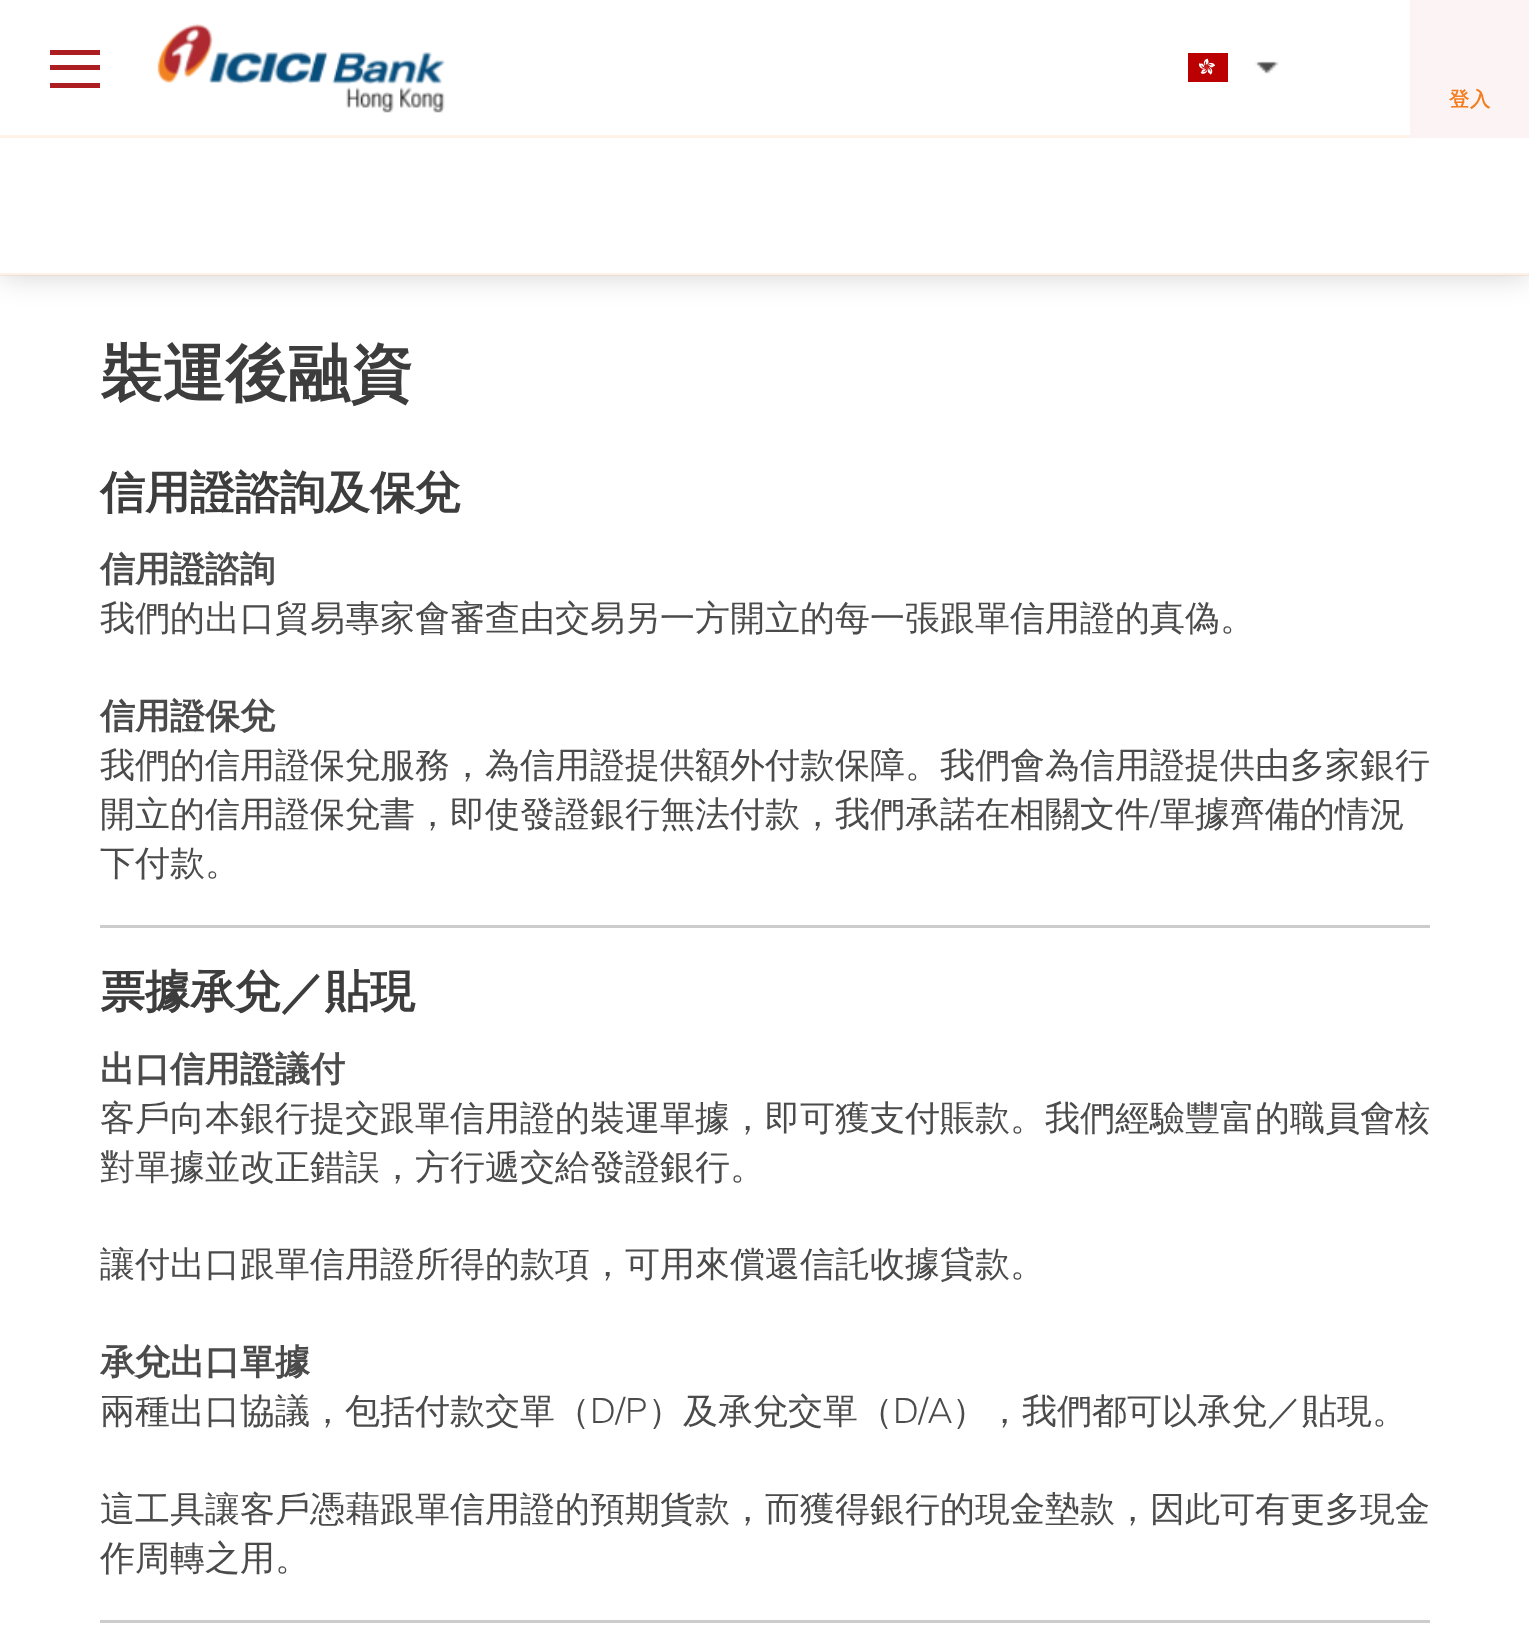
<svg xmlns="http://www.w3.org/2000/svg" width="1529" height="1650" viewBox="0 0 1529 1650">
  <style>
    .t1 { font: bold 20px WenQuanYi Zen Hei; letter-spacing: 1px; fill: #f37e20; }
    .t2 { font: bold 62.5px WenQuanYi Zen Hei; fill: #3d3d3d; }
    .t3 { font: bold 45px WenQuanYi Zen Hei; fill: #3d3d3d; }
    .t4 { font: bold 35px WenQuanYi Zen Hei; fill: #4b4b4b; }
    .t5 { font: 500 35px WenQuanYi Zen Hei; fill: #4b4b4b; }
    .t6 { font: 300 35px Muli; fill: #4b4b4b; }
  </style>
  <rect width="100%" height="100%" fill="#fff"/>
  <rect x="0" y="0" width="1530" height="275" fill="#0000002e" filter="blur(15px)"/>
  <rect x="0" y="0" width="1529" height="275" fill="#fff"/>
  <rect x="0" y="135" width="1410" height="3" fill="#fef2e9"/>
  <rect x="50" y="50" width="50" height="5" fill="#ad1e23"/>
  <rect x="50" y="65" width="50" height="5" fill="#ad1e23"/>
  <rect x="50" y="83" width="50" height="5" fill="#ad1e23"/>
  <image x="157" y="23" width="288" height="90" href="images/1.png"/>
  <image x="1188" y="53" width="40" height="29" href="images/2.png"/>
  <image x="1255" y="61" width="24" height="13" href="images/3.png"/>
  <rect x="1410" y="0" width="119" height="138" fill="#fbf3f4"/>
  <text x="1449" y="106" class="t1">登入</text>
  <rect x="0" y="273" width="1529" height="3" fill="#f37e201a"/>
  <text x="100" y="395" class="t2">裝運後融資</text>
  <text x="100" y="508" class="t3">信用證諮詢及保兌</text>
  <text x="100" y="581" class="t4">信用證諮詢</text>
  <text x="100" y="630" class="t5">我們的出口貿易專家會審查由交易另一方開立的每一張跟單信用證的真偽。</text>
  <text x="100" y="728" class="t4">信用證保兌</text>
  <text x="100" y="777" class="t5">我們的信用證保兌服務，為信用證提供額外付款保障。我們會為信用證提供由多家銀行</text>
  <text x="100" y="826" class="t5">開立的信用證保兌書，即使發證銀行無法付款，我們承諾在相關文件</text>
  <text x="1150" y="826" class="t6">/</text>
  <text x="1160" y="826" class="t5">單據齊備的情況</text>
  <text x="100" y="875" class="t5">下付款。</text>
  <rect x="100" y="925" width="1330" height="3" fill="#ccc"/>
  <text x="100" y="1007" class="t3">票據承兌／貼現</text>
  <text x="100" y="1081" class="t4">出口信用證議付</text>
  <text x="100" y="1130" class="t5">客戶向本銀行提交跟單信用證的裝運單據，即可獲支付賬款。我們經驗豐富的職員會核</text>
  <text x="100" y="1179" class="t5">對單據並改正錯誤，方行遞交給發證銀行。</text>
  <text x="100" y="1276" class="t5">讓付出口跟單信用證所得的款項，可用來償還信託收據貸款。</text>
  <text x="100" y="1374" class="t4">承兌出口單據</text>
  <text x="100" y="1423" class="t5">兩種出口協議，包括付款交單（</text>
  <text x="590" y="1423" class="t6">D/P</text>
  <text x="648" y="1423" class="t5">）及承兌交單（</text>
  <text x="893" y="1423" class="t6">D/A</text>
  <text x="952" y="1423" class="t5">），我們都可以承兌／貼現。</text>
  <text x="100" y="1521" class="t5">這工具讓客戶憑藉跟單信用證的預期貨款，而獲得銀行的現金墊款，因此可有更多現金</text>
  <text x="100" y="1570" class="t5">作周轉之用。</text>
  <rect x="100" y="1620" width="1330" height="3" fill="#ccc"/>
</svg>
